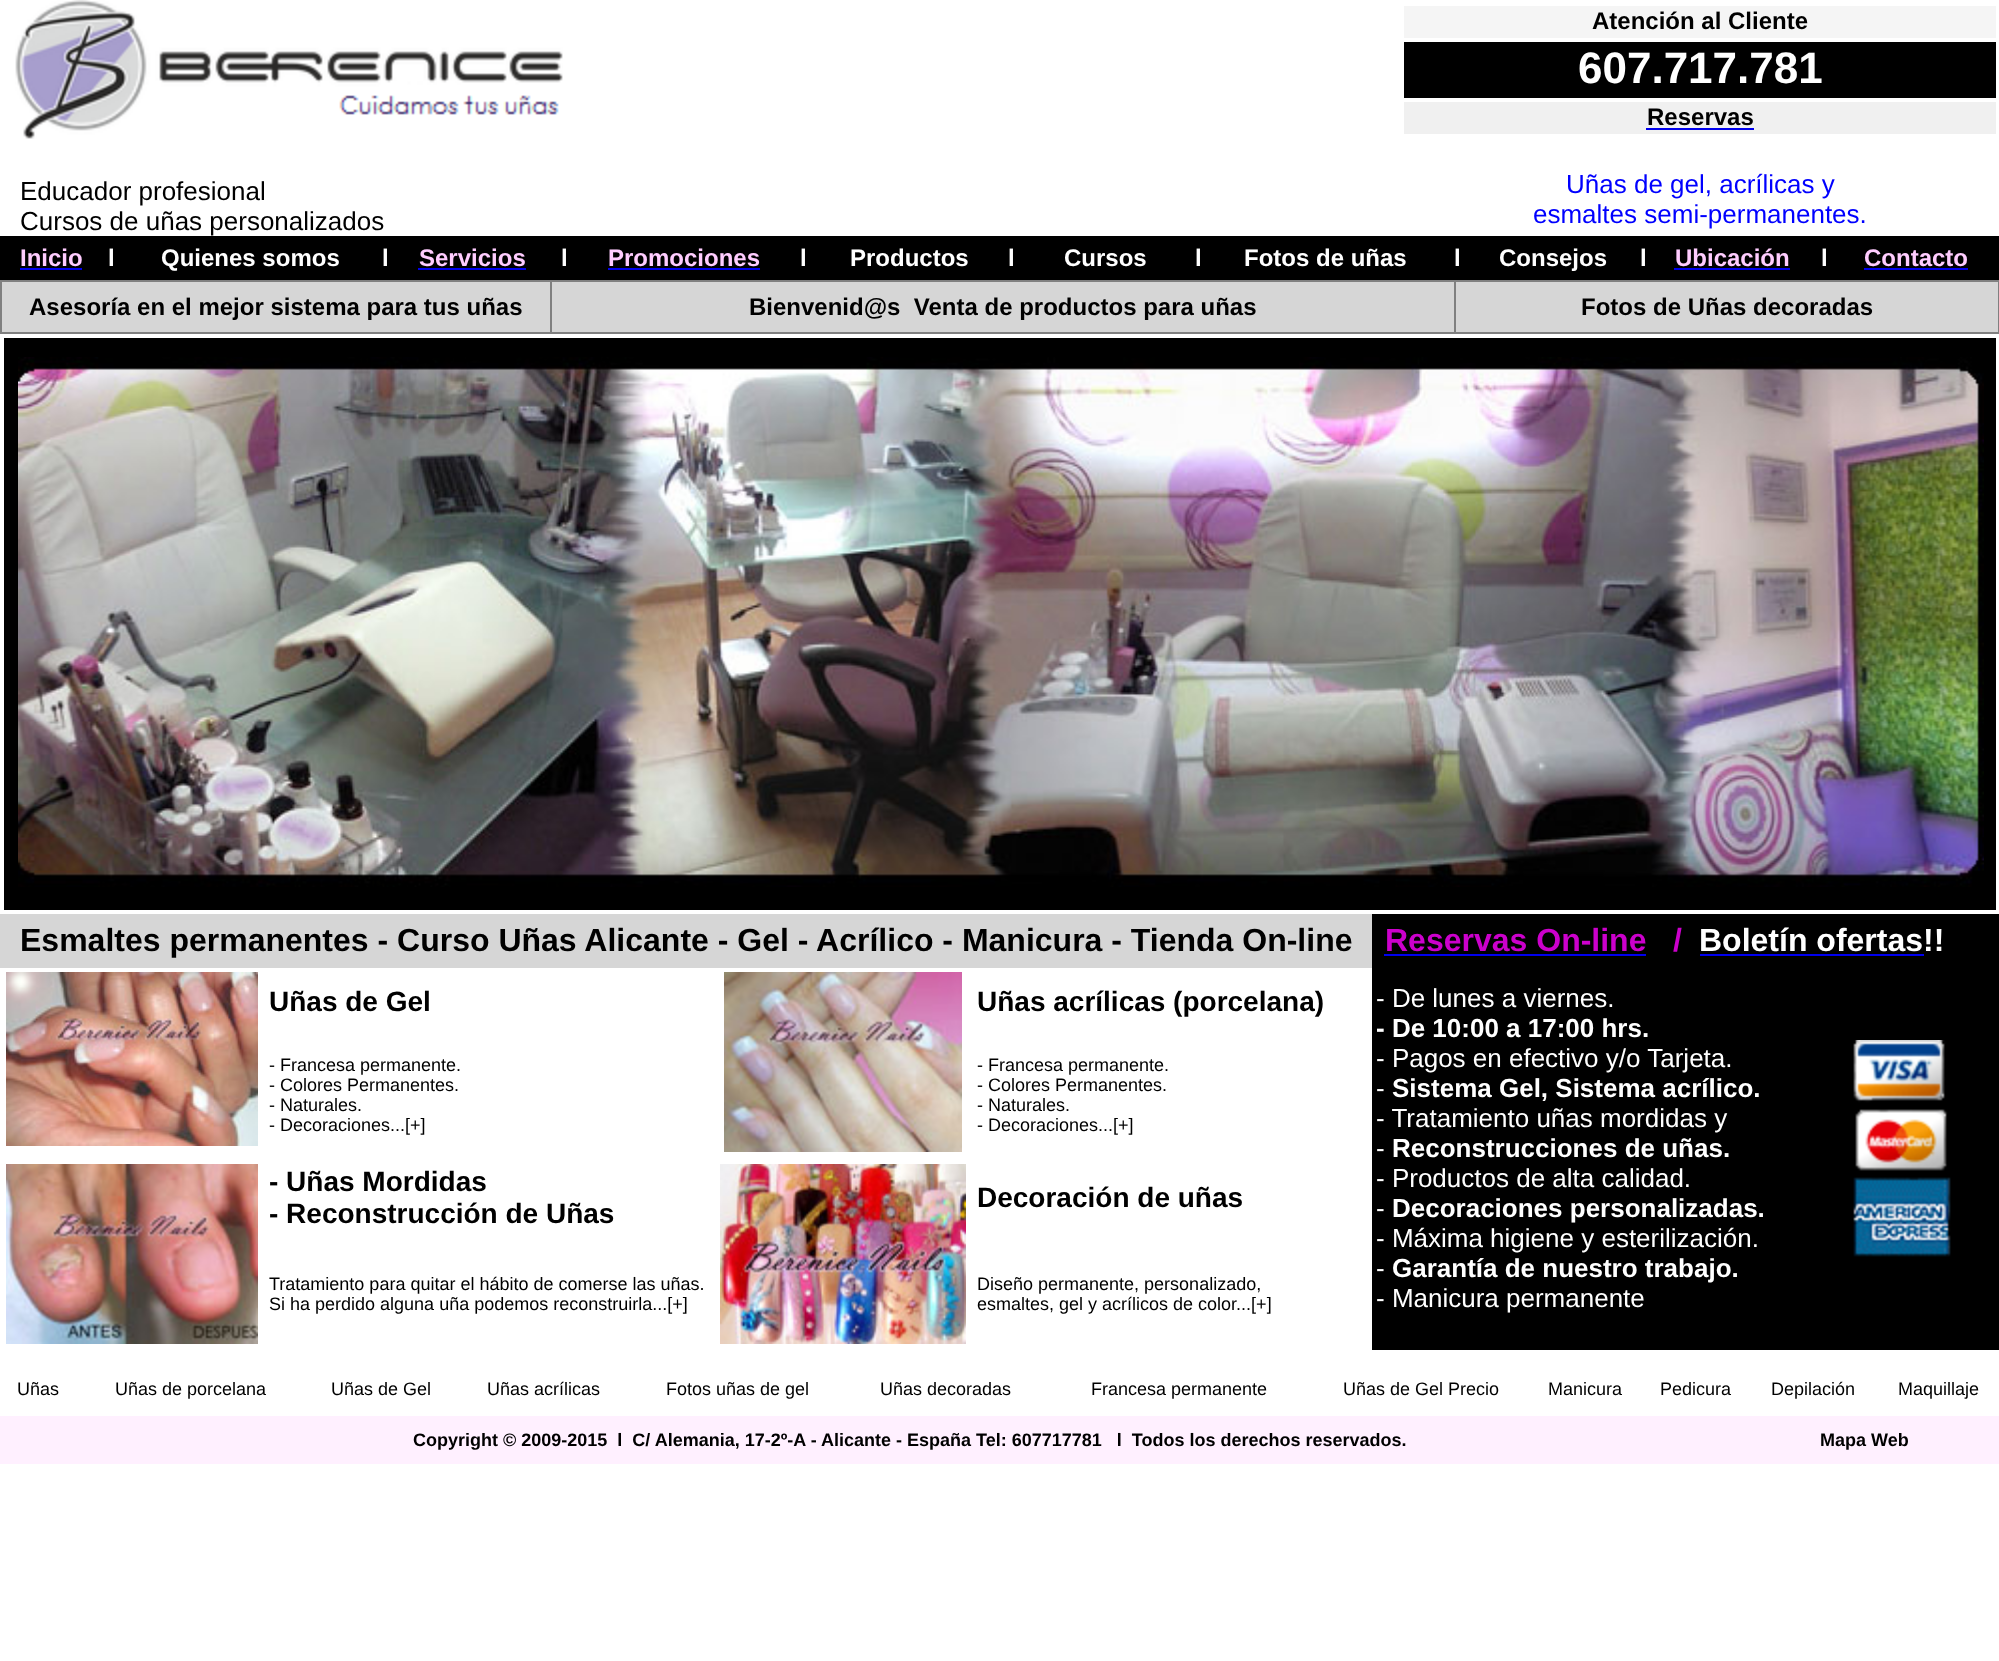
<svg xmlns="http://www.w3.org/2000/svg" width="1999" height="1661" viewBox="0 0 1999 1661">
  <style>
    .t1 { font: 26px Liberation Sans; fill: #000; }
    .t2 { font: bold 24px Liberation Sans; fill: #000; }
    .t3 { font: bold 44px Liberation Sans; fill: #fff; }
    .t4 { font: 26px Liberation Sans; fill: #00f; }
    .t5 { font: bold 24px Liberation Sans; fill: #fcf; }
    .t6 { font: bold 24px Liberation Sans; fill: #fff; }
    .t7 { font: bold 32px Liberation Sans; fill: #000; }
    .t8 { font: bold 32px Liberation Sans; fill: #c0c; }
    .t9 { font: bold 32px Liberation Sans; fill: #fff; }
    .t10 { font: bold 28px Liberation Sans; fill: #000; }
    .t11 { font: 26px Liberation Sans; fill: #fff; }
    .t12 { font: bold 26px Liberation Sans; fill: #fff; }
    .t13 { font: 18px Liberation Sans; fill: #000; }
    .t14 { font: bold 18px Liberation Sans; fill: #000; }
  </style>
  <rect width="100%" height="100%" fill="#fff"/>
  <image x="15" y="0" width="548" height="139" href="images/1.png"/>
  <text x="20" y="200" class="t1">Educador profesional</text>
  <text x="20" y="230" class="t1">Cursos de uñas personalizados</text>
  <rect x="1404" y="6" width="592" height="32" fill="#f5f5f5"/>
  <text x="1592" y="29" class="t2">Atención al Cliente</text>
  <rect x="1404" y="42" width="592" height="56" fill="#000"/>
  <text x="1578" y="83" class="t3">607.717.781</text>
  <rect x="1404" y="102" width="592" height="32" fill="#f0f0f0"/>
  <text x="1647" y="125" class="t2">Reservas</text>
  <rect x="1646" y="128" width="108" height="2" fill="#00e"/>
  <text x="1566" y="193" class="t4">Uñas de gel, acrílicas y</text>
  <text x="1533" y="223" class="t4">esmaltes semi-permanentes.</text>
  <rect x="0" y="236" width="1999" height="44" fill="#000"/>
  <text x="20" y="266" class="t5">Inicio</text>
  <rect x="20" y="268" width="62" height="2" fill="#00e"/>
  <text x="108" y="266" class="t6">l</text>
  <text x="161" y="266" class="t6">Quienes somos</text>
  <text x="382" y="266" class="t6">l</text>
  <text x="419" y="266" class="t5">Servicios</text>
  <rect x="418" y="268" width="108" height="2" fill="#00e"/>
  <text x="561" y="266" class="t6">l</text>
  <text x="608" y="266" class="t5">Promociones</text>
  <rect x="608" y="268" width="152" height="2" fill="#00e"/>
  <text x="800" y="266" class="t6">l</text>
  <text x="850" y="266" class="t6">Productos</text>
  <text x="1008" y="266" class="t6">l</text>
  <text x="1064" y="266" class="t6">Cursos</text>
  <text x="1195" y="266" class="t6">l</text>
  <text x="1244" y="266" class="t6">Fotos de uñas</text>
  <text x="1454" y="266" class="t6">l</text>
  <text x="1499" y="266" class="t6">Consejos</text>
  <text x="1640" y="266" class="t6">l</text>
  <text x="1675" y="266" class="t5">Ubicación</text>
  <rect x="1674" y="268" width="116" height="2" fill="#00e"/>
  <text x="1821" y="266" class="t6">l</text>
  <text x="1864" y="266" class="t5">Contacto</text>
  <rect x="1864" y="268" width="104" height="2" fill="#00e"/>
  <rect x="2" y="282" width="1996" height="50" fill="#d6d6d6"/>
  <rect x="0" y="280" width="1999" height="2" fill="#808080"/>
  <rect x="1998" y="280" width="1" height="54" fill="#808080"/>
  <rect x="0" y="332" width="1999" height="2" fill="#808080"/>
  <rect x="0" y="280" width="2" height="54" fill="#808080"/>
  <text x="29" y="315" class="t2">Asesoría en el mejor sistema para tus uñas</text>
  <rect x="550" y="280" width="2" height="54" fill="#808080"/>
  <text x="749" y="315" class="t2" xml:space="preserve">Bienvenid@s  Venta de productos para uñas</text>
  <rect x="1454" y="280" width="2" height="54" fill="#808080"/>
  <text x="1581" y="315" class="t2">Fotos de Uñas decoradas</text>
  <rect x="4" y="338" width="1992" height="572" fill="#000"/>
  <image x="18" y="357" width="1966" height="530" href="images/2.png"/>
  <rect x="0" y="914" width="1372" height="54" fill="#d6d6d6"/>
  <text x="20" y="951" class="t7">Esmaltes permanentes - Curso Uñas Alicante - Gel - Acrílico - Manicura - Tienda On-line</text>
  <rect x="1372" y="914" width="627" height="436" fill="#000"/>
  <text x="1385" y="951" class="t8">Reservas On-line</text>
  <rect x="1384" y="954" width="262" height="2" fill="#00e"/>
  <text x="1673" y="951" class="t8">/</text>
  <text x="1699" y="951" class="t9">Boletín ofertas!!</text>
  <rect x="1700" y="954" width="224" height="2" fill="#00e"/>
  <image x="6" y="972" width="252" height="174" href="images/3.png"/>
  <text x="269" y="1011" class="t10">Uñas de Gel</text>
  <image x="724" y="972" width="238" height="180" href="images/4.png"/>
  <text x="977" y="1011" class="t10">Uñas acrílicas (porcelana)</text>
  <text x="1376" y="1007" class="t11">- De lunes a viernes.</text>
  <text x="1376" y="1037" class="t12">- De 10:00 a 17:00 hrs.</text>
  <text x="1376" y="1067" class="t11">- Pagos en efectivo y/o Tarjeta.</text>
  <text x="1376" y="1097" class="t11">-</text>
  <text x="1392" y="1097" class="t12">Sistema Gel, Sistema acrílico.</text>
  <text x="1376" y="1127" class="t11">- Tratamiento uñas mordidas y</text>
  <text x="1376" y="1157" class="t11">-</text>
  <text x="1392" y="1157" class="t12">Reconstrucciones de uñas.</text>
  <text x="1376" y="1187" class="t11">- Productos de alta calidad.</text>
  <text x="1376" y="1217" class="t11">-</text>
  <text x="1392" y="1217" class="t12">Decoraciones personalizadas.</text>
  <text x="1376" y="1247" class="t11">- Máxima higiene y esterilización.</text>
  <text x="1376" y="1277" class="t11">-</text>
  <text x="1392" y="1277" class="t12">Garantía de nuestro trabajo.</text>
  <text x="1376" y="1307" class="t11">- Manicura permanente</text>
  <image x="1853" y="1040" width="98" height="217" href="images/5.png"/>
  <text x="269" y="1071" class="t13">- Francesa permanente.</text>
  <text x="269" y="1091" class="t13">- Colores Permanentes.</text>
  <text x="269" y="1111" class="t13">- Naturales.</text>
  <text x="269" y="1131" class="t13">- Decoraciones...[+]</text>
  <text x="977" y="1071" class="t13">- Francesa permanente.</text>
  <text x="977" y="1091" class="t13">- Colores Permanentes.</text>
  <text x="977" y="1111" class="t13">- Naturales.</text>
  <text x="977" y="1131" class="t13">- Decoraciones...[+]</text>
  <image x="6" y="1164" width="252" height="180" href="images/6.png"/>
  <text x="269" y="1191" class="t10">- Uñas Mordidas</text>
  <text x="269" y="1223" class="t10">- Reconstrucción de Uñas</text>
  <image x="720" y="1164" width="246" height="180" href="images/7.png"/>
  <text x="977" y="1207" class="t10">Decoración de uñas</text>
  <text x="269" y="1290" class="t13">Tratamiento para quitar el hábito de comerse las uñas.</text>
  <text x="269" y="1310" class="t13">Si ha perdido alguna uña podemos reconstruirla...[+]</text>
  <text x="977" y="1290" class="t13">Diseño permanente, personalizado,</text>
  <text x="977" y="1310" class="t13">esmaltes, gel y acrílicos de color...[+]</text>
  <text x="17" y="1395" class="t13">Uñas</text>
  <text x="115" y="1395" class="t13">Uñas de porcelana</text>
  <text x="331" y="1395" class="t13">Uñas de Gel</text>
  <text x="487" y="1395" class="t13">Uñas acrílicas</text>
  <text x="666" y="1395" class="t13">Fotos uñas de gel</text>
  <text x="880" y="1395" class="t13">Uñas decoradas</text>
  <text x="1091" y="1395" class="t13">Francesa permanente</text>
  <text x="1343" y="1395" class="t13">Uñas de Gel Precio</text>
  <text x="1548" y="1395" class="t13">Manicura</text>
  <text x="1660" y="1395" class="t13">Pedicura</text>
  <text x="1771" y="1395" class="t13">Depilación</text>
  <text x="1898" y="1395" class="t13">Maquillaje</text>
  <rect x="0" y="1416" width="1999" height="48" fill="#fff0ff"/>
  <text x="413" y="1446" class="t14" xml:space="preserve">Copyright © 2009-2015  l  C/ Alemania, 17-2º-A - Alicante - España Tel: 607717781   l  Todos los derechos reservados.</text>
  <text x="1820" y="1446" class="t14">Mapa Web</text>
</svg>
